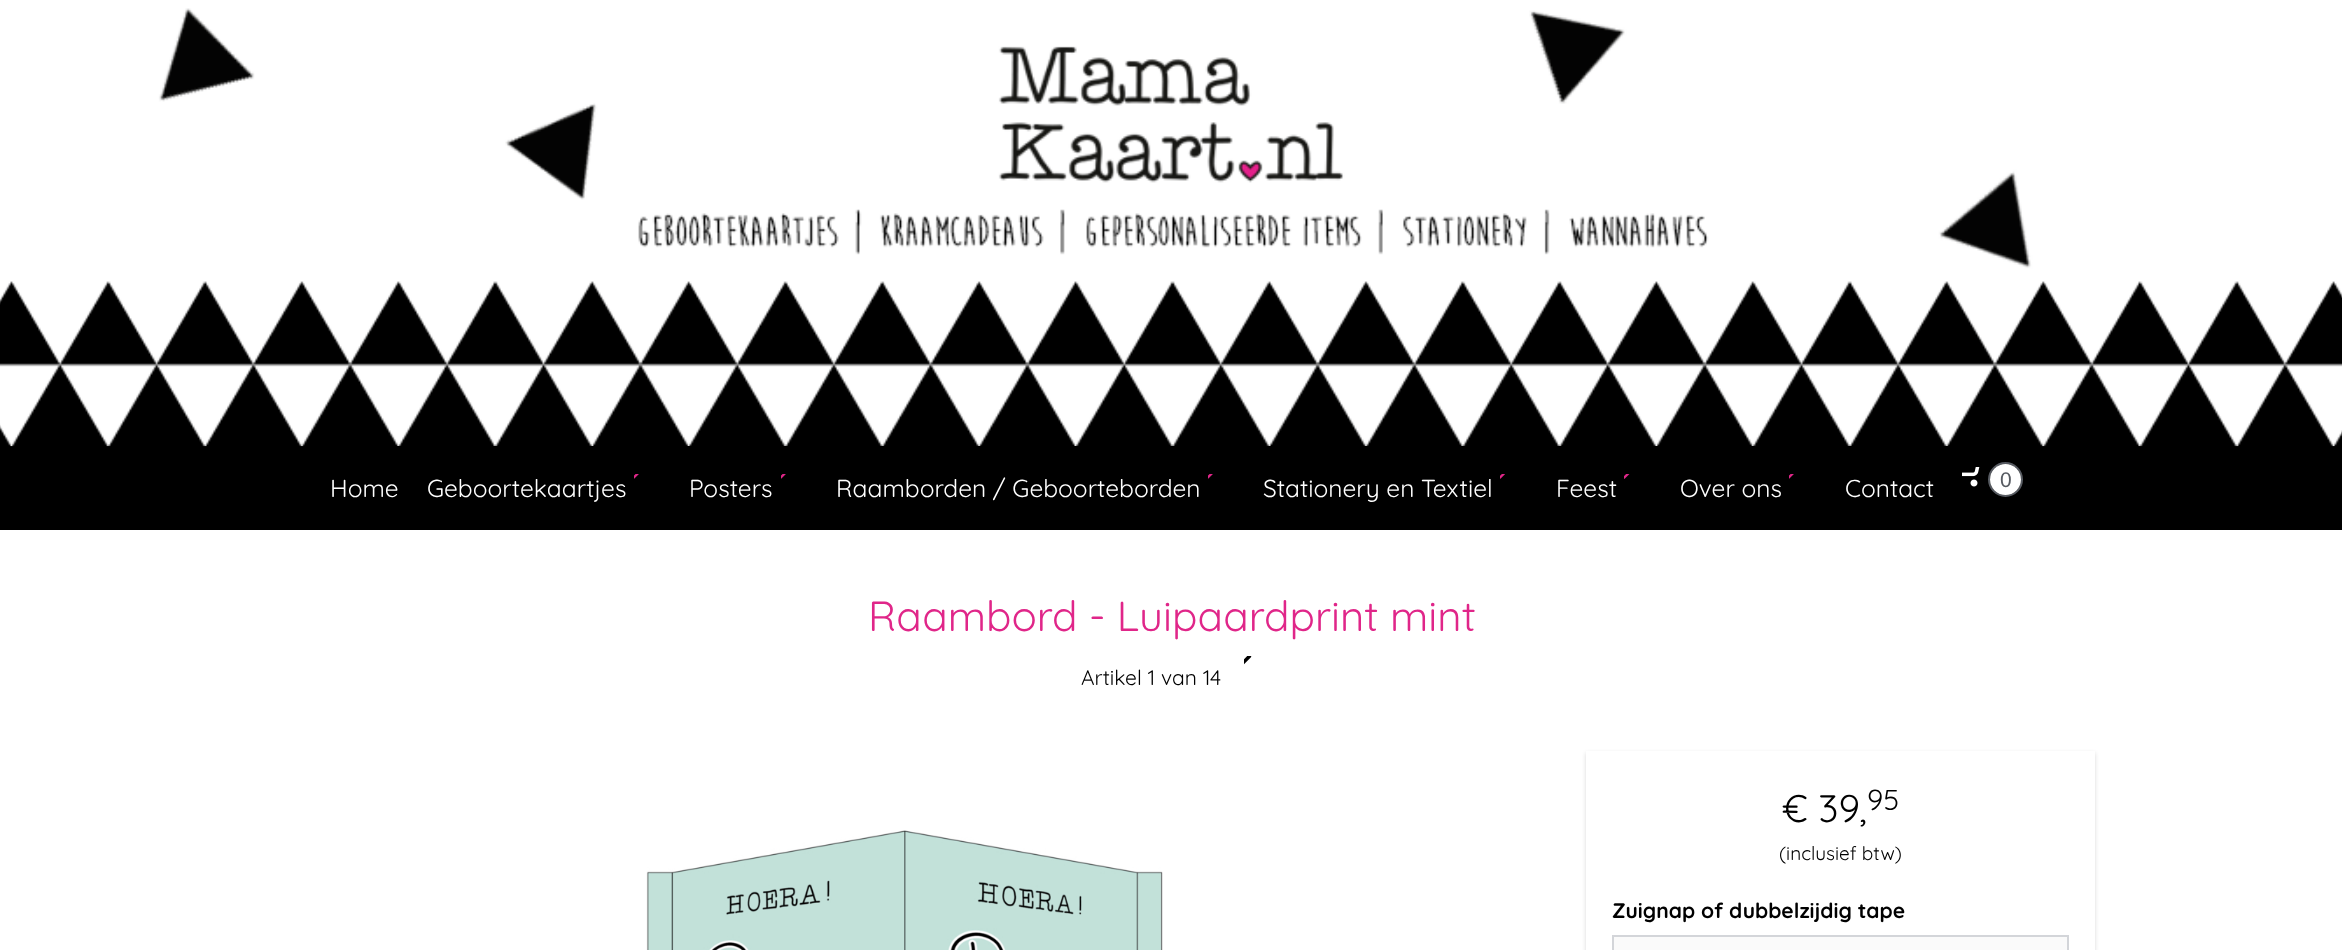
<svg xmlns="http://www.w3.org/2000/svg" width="2342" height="950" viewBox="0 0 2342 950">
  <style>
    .t1 { font: 24.5px Quicksand; fill: #fff; }
    .t2 { font: 21px Liberation Sans; fill: #575b62; }
    .t3 { font: 42px Quicksand; fill: #e02689; }
    .t4 { font: 21px Quicksand; fill: #000; }
    .t5 { font: 38.5px Quicksand; fill: #000; }
    .t6 { font: 29px Quicksand; fill: #000; }
    .t7 { font: 19px Quicksand; fill: #000; }
    .t8 { font: bold 21px Quicksand; fill: #000; }
  </style>
  <rect width="100%" height="100%" fill="#fff"/>
  <rect x="0" y="446" width="2342" height="84" fill="#000"/>
  <image x="0" y="8" width="2342" height="439" href="images/1.png"/>
  <rect x="397" y="446" width="4" height="1" fill="#000"/>
  <text x="330" y="497" class="t1">Home</text>
  <rect x="493" y="446" width="101" height="1" fill="#000"/>
  <image x="634" y="474" width="5" height="5" href="images/2.png"/>
  <text x="427" y="497" class="t1">Geboortekaartjes</text>
  <rect x="687" y="446" width="101" height="1" fill="#000"/>
  <image x="781" y="474" width="5" height="5" href="images/2.png"/>
  <text x="689" y="497" class="t1">Posters</text>
  <rect x="880" y="446" width="295" height="1" fill="#000"/>
  <image x="1208" y="474" width="5" height="5" href="images/2.png"/>
  <text x="836" y="497" class="t1">Raamborden / Geboorteborden</text>
  <rect x="1267" y="446" width="198" height="1" fill="#000"/>
  <image x="1500" y="474" width="5" height="5" href="images/3.png"/>
  <text x="1263" y="497" class="t1">Stationery en Textiel</text>
  <rect x="1557" y="446" width="101" height="1" fill="#000"/>
  <image x="1624" y="474" width="6" height="5" href="images/4.png"/>
  <text x="1556" y="497" class="t1">Feest</text>
  <rect x="1751" y="446" width="4" height="1" fill="#000"/>
  <image x="1789" y="474" width="5" height="5" href="images/2.png"/>
  <text x="1680" y="497" class="t1">Over ons</text>
  <rect x="1848" y="446" width="100" height="1" fill="#000"/>
  <text x="1845" y="497" class="t1">Contact</text>
  <image x="1962" y="467" width="18" height="20" href="images/5.png"/>
  <circle cx="2005.5" cy="479.5" r="16.5" fill="none" stroke="#575b62" stroke-width="2"/>
  <circle cx="2005.5" cy="479.5" r="15.5" fill="#fff"/>
  <text x="2000" y="487" class="t2">0</text>
  <text x="868" y="631" class="t3">Raambord - Luipaardprint mint</text>
  <image x="1244" y="656" width="8" height="9" href="images/6.png"/>
  <text x="1081" y="685" class="t4">Artikel 1 van 14</text>
  <image x="646" y="830" width="517" height="120" href="images/7.png"/>
  <rect x="1586" y="753" width="509" height="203" fill="#00000026" filter="blur(2px)"/>
  <rect x="1586" y="751" width="509" height="199" fill="#fff"/>
  <text x="1782" y="822" class="t5">€ 39,</text>
  <text x="1867" y="810" class="t6">95</text>
  <text x="1779" y="860" class="t7">(inclusief btw)</text>
  <text x="1612" y="918" class="t8">Zuignap of dubbelzijdig tape</text>
  <rect x="1613" y="936" width="455" height="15" fill="#fafafa" stroke="#d3d5d9" stroke-width="2"/>
</svg>
